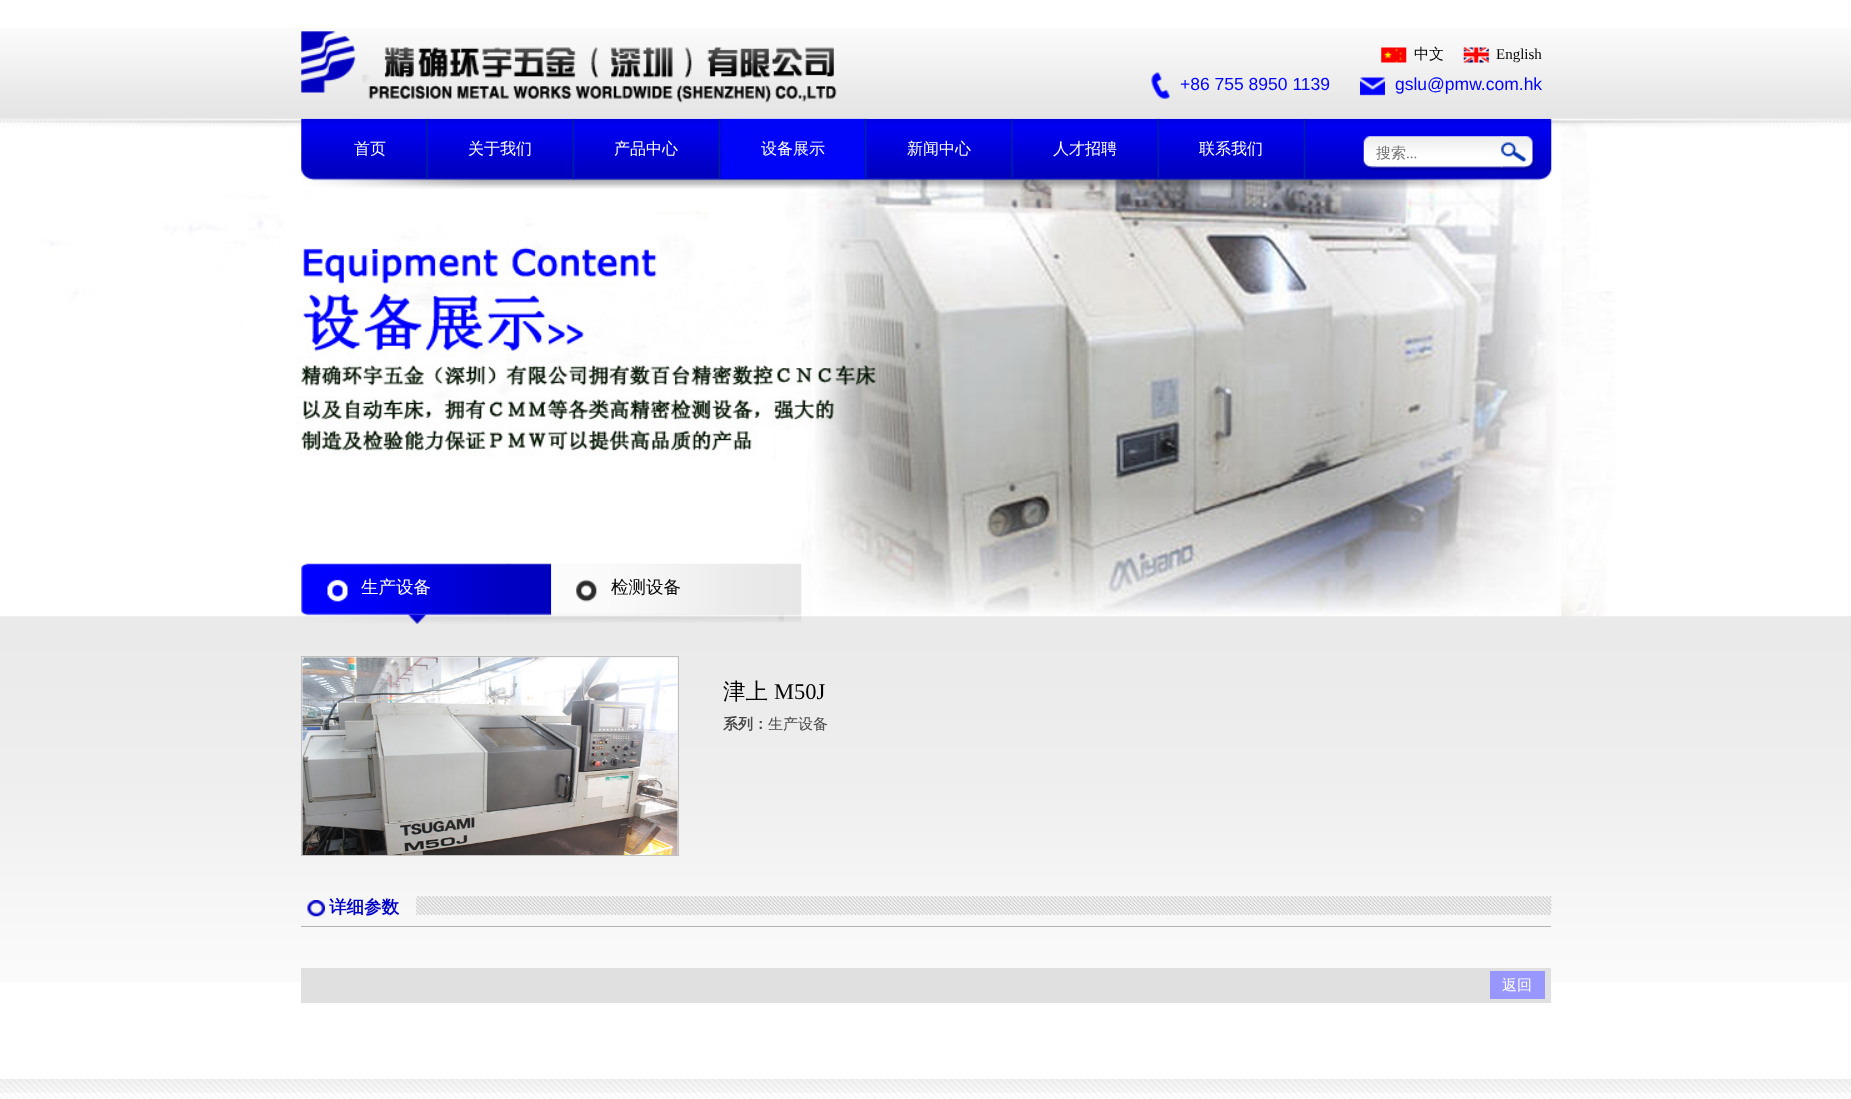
<svg xmlns="http://www.w3.org/2000/svg" width="1851" height="1099" viewBox="0 0 1851 1099">
  <style>
    .t1 { font: 500 15px WenQuanYi Zen Hei; fill: #020202; }
    .t2 { font: 15px Liberation Serif; fill: #020202; }
    .t3 { font: 17.5px Liberation Sans; fill: #0000fe; }
    .t4 { font: 500 16px WenQuanYi Zen Hei; fill: #fff; }
    .t5 { font: 500 15px WenQuanYi Zen Hei; fill: #757575; }
    .t6 { font: 15px Liberation Serif; fill: #757575; }
    .t7 { font: 500 17.5px WenQuanYi Zen Hei; fill: #fff; }
    .t8 { font: 500 17.5px WenQuanYi Zen Hei; fill: #020202; }
    .t9 { font: 500 22.5px WenQuanYi Zen Hei; fill: #020202; }
    .t10 { font: 22.5px Liberation Serif; fill: #020202; }
    .t11 { font: bold 15px WenQuanYi Zen Hei; fill: #484848; }
    .t12 { font: 500 15px WenQuanYi Zen Hei; fill: #484848; }
    .t13 { font: bold 17.5px WenQuanYi Zen Hei; fill: #0000c7; }
    .t14 { font: 500 15px WenQuanYi Zen Hei; fill: #fff; }
  </style>
  <rect width="100%" height="100%" fill="#fff"/>
  <image x="0" y="28" width="1851" height="91" href="images/1.png"/>
  <image x="301" y="31" width="536" height="88" href="images/2.png"/>
  <image x="1381" y="47" width="26" height="16" href="images/3.png"/>
  <text x="1414" y="59" class="t1">中文</text>
  <image x="1463" y="47" width="26" height="16" href="images/4.png"/>
  <text x="1496" y="59" class="t2">English</text>
  <image x="1151" y="72" width="19" height="27" href="images/5.png"/>
  <text x="1180" y="90" class="t3">+86 755 8950 1139</text>
  <image x="1360" y="77" width="25" height="19" href="images/6.png"/>
  <text x="1395" y="90" class="t3">gslu@pmw.com.hk</text>
  <image x="0" y="616" width="1851" height="366" href="images/7.png"/>
  <image x="0" y="119" width="1851" height="498" href="images/8.png"/>
  <image x="0" y="119" width="1851" height="8" href="images/9.png"/>
  <image x="301" y="118" width="1251" height="71" href="images/10.png"/>
  <image x="426" y="118" width="3" height="61" href="images/11.png"/>
  <text x="354" y="154" class="t4">首页</text>
  <image x="572" y="118" width="3" height="61" href="images/12.png"/>
  <text x="468" y="154" class="t4">关于我们</text>
  <image x="718" y="118" width="4" height="61" href="images/13.png"/>
  <text x="614" y="154" class="t4">产品中心</text>
  <image x="865" y="118" width="3" height="61" href="images/14.png"/>
  <image x="721" y="118" width="144" height="61" href="images/15.png"/>
  <text x="761" y="154" class="t4">设备展示</text>
  <image x="1011" y="118" width="3" height="61" href="images/16.png"/>
  <text x="907" y="154" class="t4">新闻中心</text>
  <image x="1157" y="118" width="3" height="61" href="images/17.png"/>
  <text x="1053" y="154" class="t4">人才招聘</text>
  <image x="1303" y="118" width="4" height="61" href="images/18.png"/>
  <text x="1199" y="154" class="t4">联系我们</text>
  <image x="1363" y="136" width="140" height="35" href="images/19.png"/>
  <image x="1376" y="166" width="126" height="1" href="images/20.png"/>
  <text x="1376" y="158" class="t5">搜索</text>
  <text x="1406" y="158" class="t6">...</text>
  <image x="1501" y="136" width="34" height="35" href="images/21.png"/>
  <image x="301" y="563" width="251" height="61" href="images/22.png"/>
  <text x="361" y="593" class="t7">生产设备</text>
  <image x="551" y="563" width="251" height="60" href="images/23.png"/>
  <text x="611" y="593" class="t8">检测设备</text>
  <rect x="301.5" y="656.5" width="377" height="199" fill="none" stroke="#c0c0c0"/>
  <image x="302" y="657" width="376" height="198" href="images/24.png"/>
  <text x="723" y="699" class="t9">津上</text>
  <text x="774" y="699" class="t10">M50J</text>
  <text x="723" y="729" class="t11">系列：</text>
  <text x="768" y="729" class="t12">生产设备</text>
  <rect x="301" y="926" width="1250" height="1" fill="#b5b5b5"/>
  <image x="307" y="900" width="18" height="17" href="images/25.png"/>
  <text x="329" y="913" class="t13">详细参数</text>
  <image x="416" y="896" width="1136" height="19" href="images/26.png"/>
  <rect x="301" y="968" width="1250" height="35" fill="#e0e0e0"/>
  <rect x="1490" y="971" width="55" height="28" fill="#9797ff"/>
  <text x="1502" y="990" class="t14">返回</text>
  <image x="0" y="1079" width="1851" height="20" href="images/27.png"/>
  <image x="0" y="1079" width="1851" height="14" href="images/28.png"/>
</svg>
